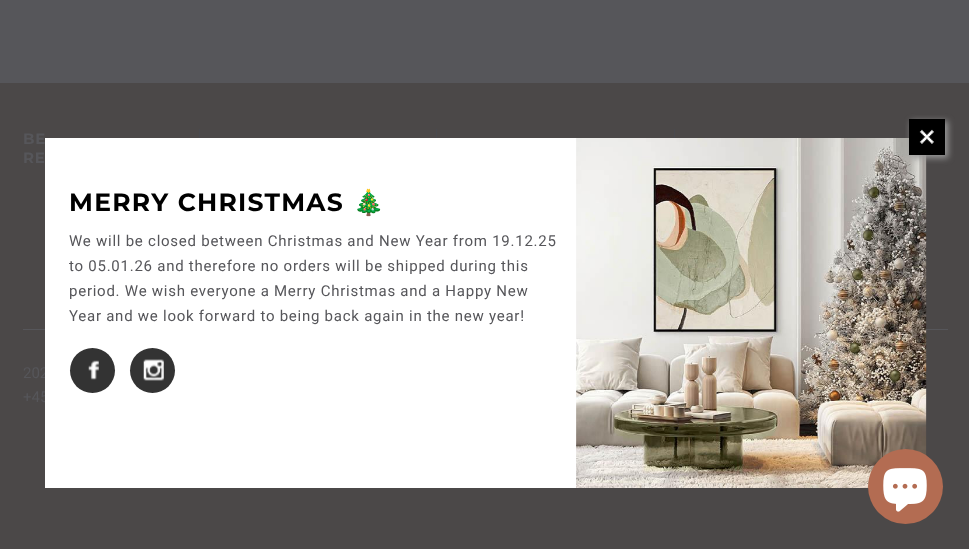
<svg xmlns="http://www.w3.org/2000/svg" width="969" height="549" viewBox="0 0 969 549">
  <style>
    .t1 { font: bold 15px Montserrat; letter-spacing: 0.75px; fill: #56565a; }
    .t2 { font: 15px Roboto; fill: #56565a; }
    .t3 { font: bold 25px Montserrat; letter-spacing: 1.25px; fill: #000; }
    .t4 { font: bold 25px Noto Color Emoji; letter-spacing: 1.25px; fill: #000; }
    .t5 { font: 15px Roboto; letter-spacing: 0.75px; fill: #56565a; }
  </style>
  <rect width="100%" height="100%" fill="#56565a"/>
  <rect x="0" y="83" width="969" height="466" fill="#4b4848"/>
  <rect x="199" y="129" width="1" height="9" fill="#48494e"/>
  <text x="23" y="144" class="t1">BE</text>
  <text x="23" y="163" class="t1">RE</text>
  <rect x="436" y="129" width="1" height="9" fill="#48494e"/>
  <rect x="674" y="129" width="1" height="9" fill="#48494e"/>
  <rect x="23" y="329" width="925" height="1" fill="#56565a"/>
  <text x="23" y="378" class="t2">202</text>
  <text x="23" y="402" class="t2">+45</text>
  <rect x="45" y="138" width="532" height="350" fill="#fff"/>
  <text x="69" y="211" class="t3">MERRY CHRISTMAS</text>
  <text x="353" y="211" class="t4">🎄</text>
  <text x="69" y="246" class="t5">We will be closed between Christmas and New Year from 19.12.25</text>
  <text x="69" y="271" class="t5">to 05.01.26 and therefore no orders will be shipped during this</text>
  <text x="69" y="296" class="t5">period. We wish everyone a Merry Christmas and a Happy New</text>
  <text x="69" y="321" class="t5">Year and we look forward to being back again in the new year!</text>
  <circle cx="92.5" cy="370.5" r="22.5" fill="#333"/>
  <image x="88" y="360" width="11" height="20" href="images/1.png"/>
  <circle cx="152.5" cy="370.5" r="22.5" fill="#333"/>
  <image x="143" y="359" width="21" height="22" href="images/2.png"/>
  <image x="576" y="138" width="351" height="350" href="images/3.png"/>
  <rect x="911" y="121" width="37" height="37" fill="#999" filter="blur(3px)"/>
  <rect x="909" y="119" width="36" height="36" fill="#000"/>
  <image x="919" y="129" width="15" height="15" href="images/4.png"/>
  <circle cx="905.5" cy="486.5" r="37.5" fill="#b36c52"/>
  <image x="883" y="468" width="44" height="44" href="images/5.png"/>
</svg>
